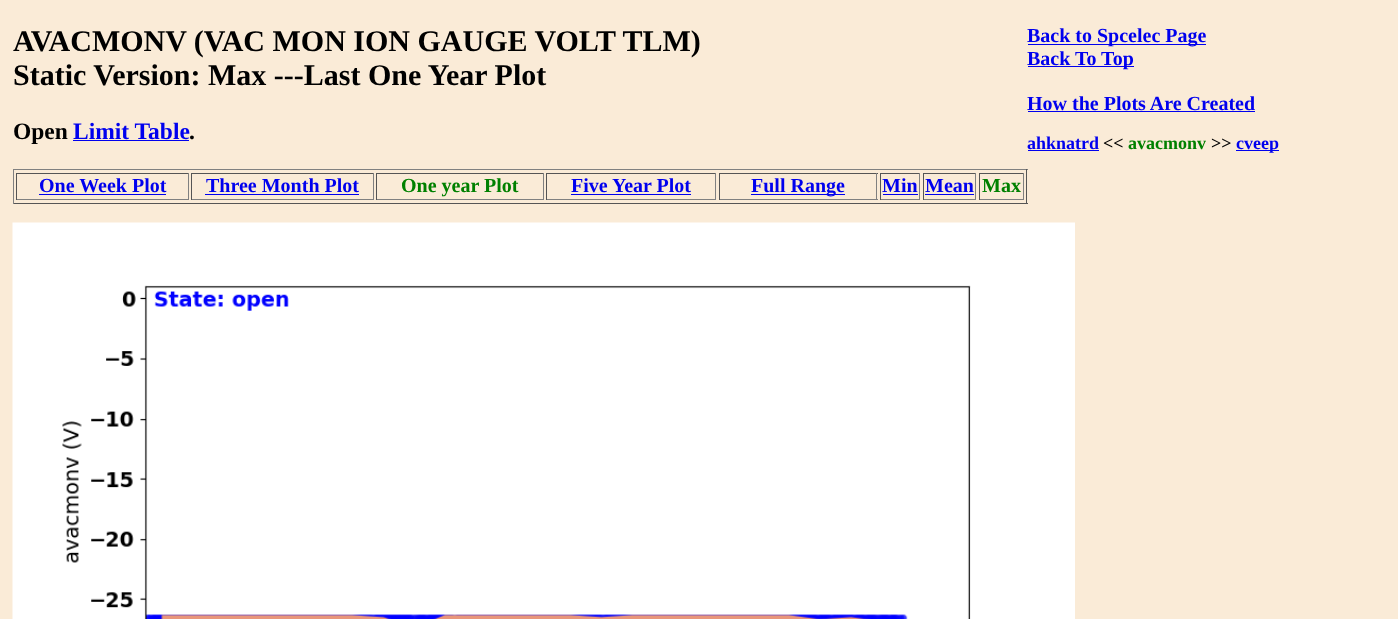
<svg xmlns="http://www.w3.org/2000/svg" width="1398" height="619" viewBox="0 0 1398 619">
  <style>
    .t1 { font: bold 30px Liberation Serif; fill: #000; }
    .t2 { font: bold 23.5px Liberation Serif; fill: #000; }
    .t3 { font: bold 23.5px Liberation Serif; fill: #00e; }
    .t4 { font: bold 20px Liberation Serif; fill: #00e; }
    .t5 { font: bold 20px Liberation Serif; fill: #008000; }
    .t6 { font: bold 18px Liberation Serif; fill: #00e; }
    .t7 { font: bold 18px Liberation Serif; fill: #000; }
    .t8 { font: bold 18px Liberation Serif; fill: #008000; }
  </style>
  <rect width="100%" height="100%" fill="#faebd7"/>
  <text x="13" y="51" class="t1">AVACMONV (VAC MON ION GAUGE VOLT TLM)</text>
  <text x="13" y="85" class="t1">Static Version: Max ---Last One Year Plot</text>
  <text x="13" y="139" class="t2">Open</text>
  <text x="73" y="139" class="t3">Limit Table</text>
  <rect x="73" y="140" width="116" height="1" fill="#00e"/>
  <text x="189" y="139" class="t2">.</text>
  <rect x="13" y="169" width="1015" height="1" fill="#808080"/>
  <rect x="1026" y="169" width="1" height="35" fill="#555"/>
  <rect x="13" y="203" width="1015" height="1" fill="#555"/>
  <rect x="13" y="169" width="1" height="35" fill="#808080"/>
  <rect x="16" y="173" width="173" height="1" fill="#555"/>
  <rect x="188" y="173" width="1" height="27" fill="#808080"/>
  <rect x="16" y="199" width="173" height="1" fill="#808080"/>
  <rect x="16" y="173" width="1" height="27" fill="#555"/>
  <text x="39" y="192" class="t4">One Week Plot</text>
  <rect x="39" y="194" width="127" height="1" fill="#00e"/>
  <rect x="191" y="173" width="183" height="1" fill="#555"/>
  <rect x="373" y="173" width="1" height="27" fill="#808080"/>
  <rect x="191" y="199" width="183" height="1" fill="#808080"/>
  <rect x="191" y="173" width="1" height="27" fill="#555"/>
  <text x="206" y="192" class="t4">Three Month Plot</text>
  <rect x="205" y="194" width="154" height="1" fill="#00e"/>
  <rect x="376" y="173" width="168" height="1" fill="#555"/>
  <rect x="543" y="173" width="1" height="27" fill="#808080"/>
  <rect x="376" y="199" width="168" height="1" fill="#808080"/>
  <rect x="376" y="173" width="1" height="27" fill="#555"/>
  <text x="401" y="192" class="t5">One year Plot</text>
  <rect x="546" y="173" width="170" height="1" fill="#555"/>
  <rect x="715" y="173" width="1" height="27" fill="#808080"/>
  <rect x="546" y="199" width="170" height="1" fill="#808080"/>
  <rect x="546" y="173" width="1" height="27" fill="#555"/>
  <text x="571" y="192" class="t4">Five Year Plot</text>
  <rect x="571" y="194" width="120" height="1" fill="#00e"/>
  <rect x="719" y="173" width="159" height="1" fill="#555"/>
  <rect x="876" y="173" width="1" height="27" fill="#808080"/>
  <rect x="719" y="199" width="159" height="1" fill="#808080"/>
  <rect x="719" y="173" width="1" height="27" fill="#555"/>
  <rect x="751" y="194" width="94" height="1" fill="#00e"/>
  <text x="751" y="192" class="t4">Full Range</text>
  <rect x="880" y="173" width="40" height="1" fill="#555"/>
  <rect x="919" y="173" width="1" height="27" fill="#808080"/>
  <rect x="880" y="199" width="40" height="1" fill="#808080"/>
  <rect x="880" y="173" width="1" height="27" fill="#555"/>
  <text x="882" y="192" class="t4">Min</text>
  <rect x="883" y="194" width="35" height="1" fill="#00e"/>
  <rect x="923" y="173" width="53" height="1" fill="#555"/>
  <rect x="975" y="173" width="1" height="27" fill="#808080"/>
  <rect x="923" y="199" width="53" height="1" fill="#808080"/>
  <rect x="923" y="173" width="1" height="27" fill="#555"/>
  <text x="925" y="192" class="t4">Mean</text>
  <rect x="925" y="194" width="49" height="1" fill="#00e"/>
  <rect x="979" y="173" width="45" height="1" fill="#555"/>
  <rect x="1023" y="173" width="1" height="27" fill="#808080"/>
  <rect x="979" y="199" width="45" height="1" fill="#808080"/>
  <rect x="979" y="173" width="1" height="27" fill="#555"/>
  <text x="982" y="192" class="t5">Max</text>
  <image x="12" y="222" width="1063" height="397" href="images/1.png"/>
  <rect x="1028" y="44" width="178" height="1" fill="#00e"/>
  <text x="1027" y="42" class="t4">Back to Spcelec Page</text>
  <rect x="1028" y="66" width="106" height="1" fill="#00e"/>
  <text x="1027" y="65" class="t4">Back To Top</text>
  <text x="1027" y="110" class="t4">How the Plots Are Created</text>
  <rect x="1028" y="111" width="227" height="1" fill="#00e"/>
  <text x="1027" y="149" class="t6">ahknatrd</text>
  <rect x="1028" y="150" width="71" height="1" fill="#00e"/>
  <text x="1103" y="149" class="t7">&lt;&lt;</text>
  <text x="1128" y="149" class="t8">avacmonv</text>
  <text x="1211" y="149" class="t7">&gt;&gt;</text>
  <rect x="1236" y="150" width="43" height="1" fill="#00e"/>
  <text x="1236" y="149" class="t6">cveep</text>
</svg>
